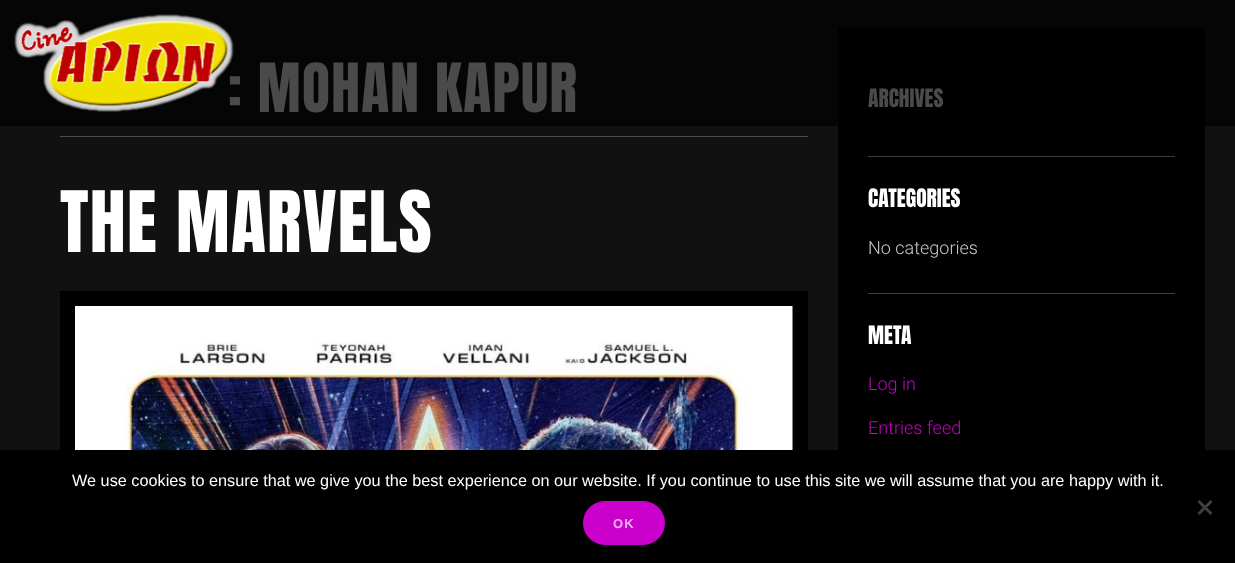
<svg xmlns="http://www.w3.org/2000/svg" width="1235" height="563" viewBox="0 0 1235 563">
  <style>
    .t1 { font: 57.5px Anton; letter-spacing: 1.25px; fill: #4a4a4a; }
    .t2 { font: 72px Anton; letter-spacing: 1.25px; fill: #fff; }
    .t3 { font: 21.5px Anton; fill: #4a4a4a; }
    .t4 { font: 21.5px Anton; fill: #fff; }
    .t5 { font: 300 18px Roboto; fill: #ccc; }
    .t6 { font: 300 18px Roboto; fill: #c0c; }
    .t7 { font: 16.25px Liberation Sans; fill: #fff; }
    .t8 { font: bold 13px Liberation Sans; letter-spacing: 1.25px; fill: #f0b3f0; }
  </style>
  <rect width="100%" height="100%" fill="#111"/>
  <rect x="0" y="0" width="1235" height="126" fill="#050505"/>
  <text x="228" y="112" class="t1">: MOHAN KAPUR</text>
  <image x="14" y="14" width="220" height="98" href="images/1.png"/>
  <rect x="60" y="136" width="748" height="1" fill="#4a4a4a"/>
  <text x="60" y="252" class="t2">THE MARVELS</text>
  <rect x="60" y="291" width="748" height="159" fill="#000"/>
  <image x="75" y="306" width="718" height="144" href="images/2.png"/>
  <rect x="838" y="28" width="367" height="422" fill="#000"/>
  <rect x="868" y="156" width="307" height="1" fill="#3d3d3d"/>
  <text x="868" y="107" class="t3">ARCHIVES</text>
  <rect x="868" y="293" width="307" height="1" fill="#3d3d3d"/>
  <text x="868" y="207" class="t4">CATEGORIES</text>
  <text x="868" y="254" class="t5">No categories</text>
  <text x="868" y="344" class="t4">META</text>
  <text x="868" y="390" class="t6">Log in</text>
  <text x="868" y="434" class="t6">Entries feed</text>
  <rect x="0" y="450" width="1235" height="113" fill="#000"/>
  <text x="72" y="486" class="t7">We use cookies to ensure that we give you the best experience on our website. If you continue to use this site we will assume that you are happy with it.</text>
  <path d="M1210.5 500L1212.5 502L1199.5 515L1197.5 513Z" fill="#404040"/>
  <path d="M1197.5 502L1199.5 500L1212.5 513L1210.5 515Z" fill="#404040"/>
  <rect x="583" y="501" width="82" height="44" rx="22" fill="#c0c"/>
  <text x="613" y="528" class="t8">OK</text>
</svg>
